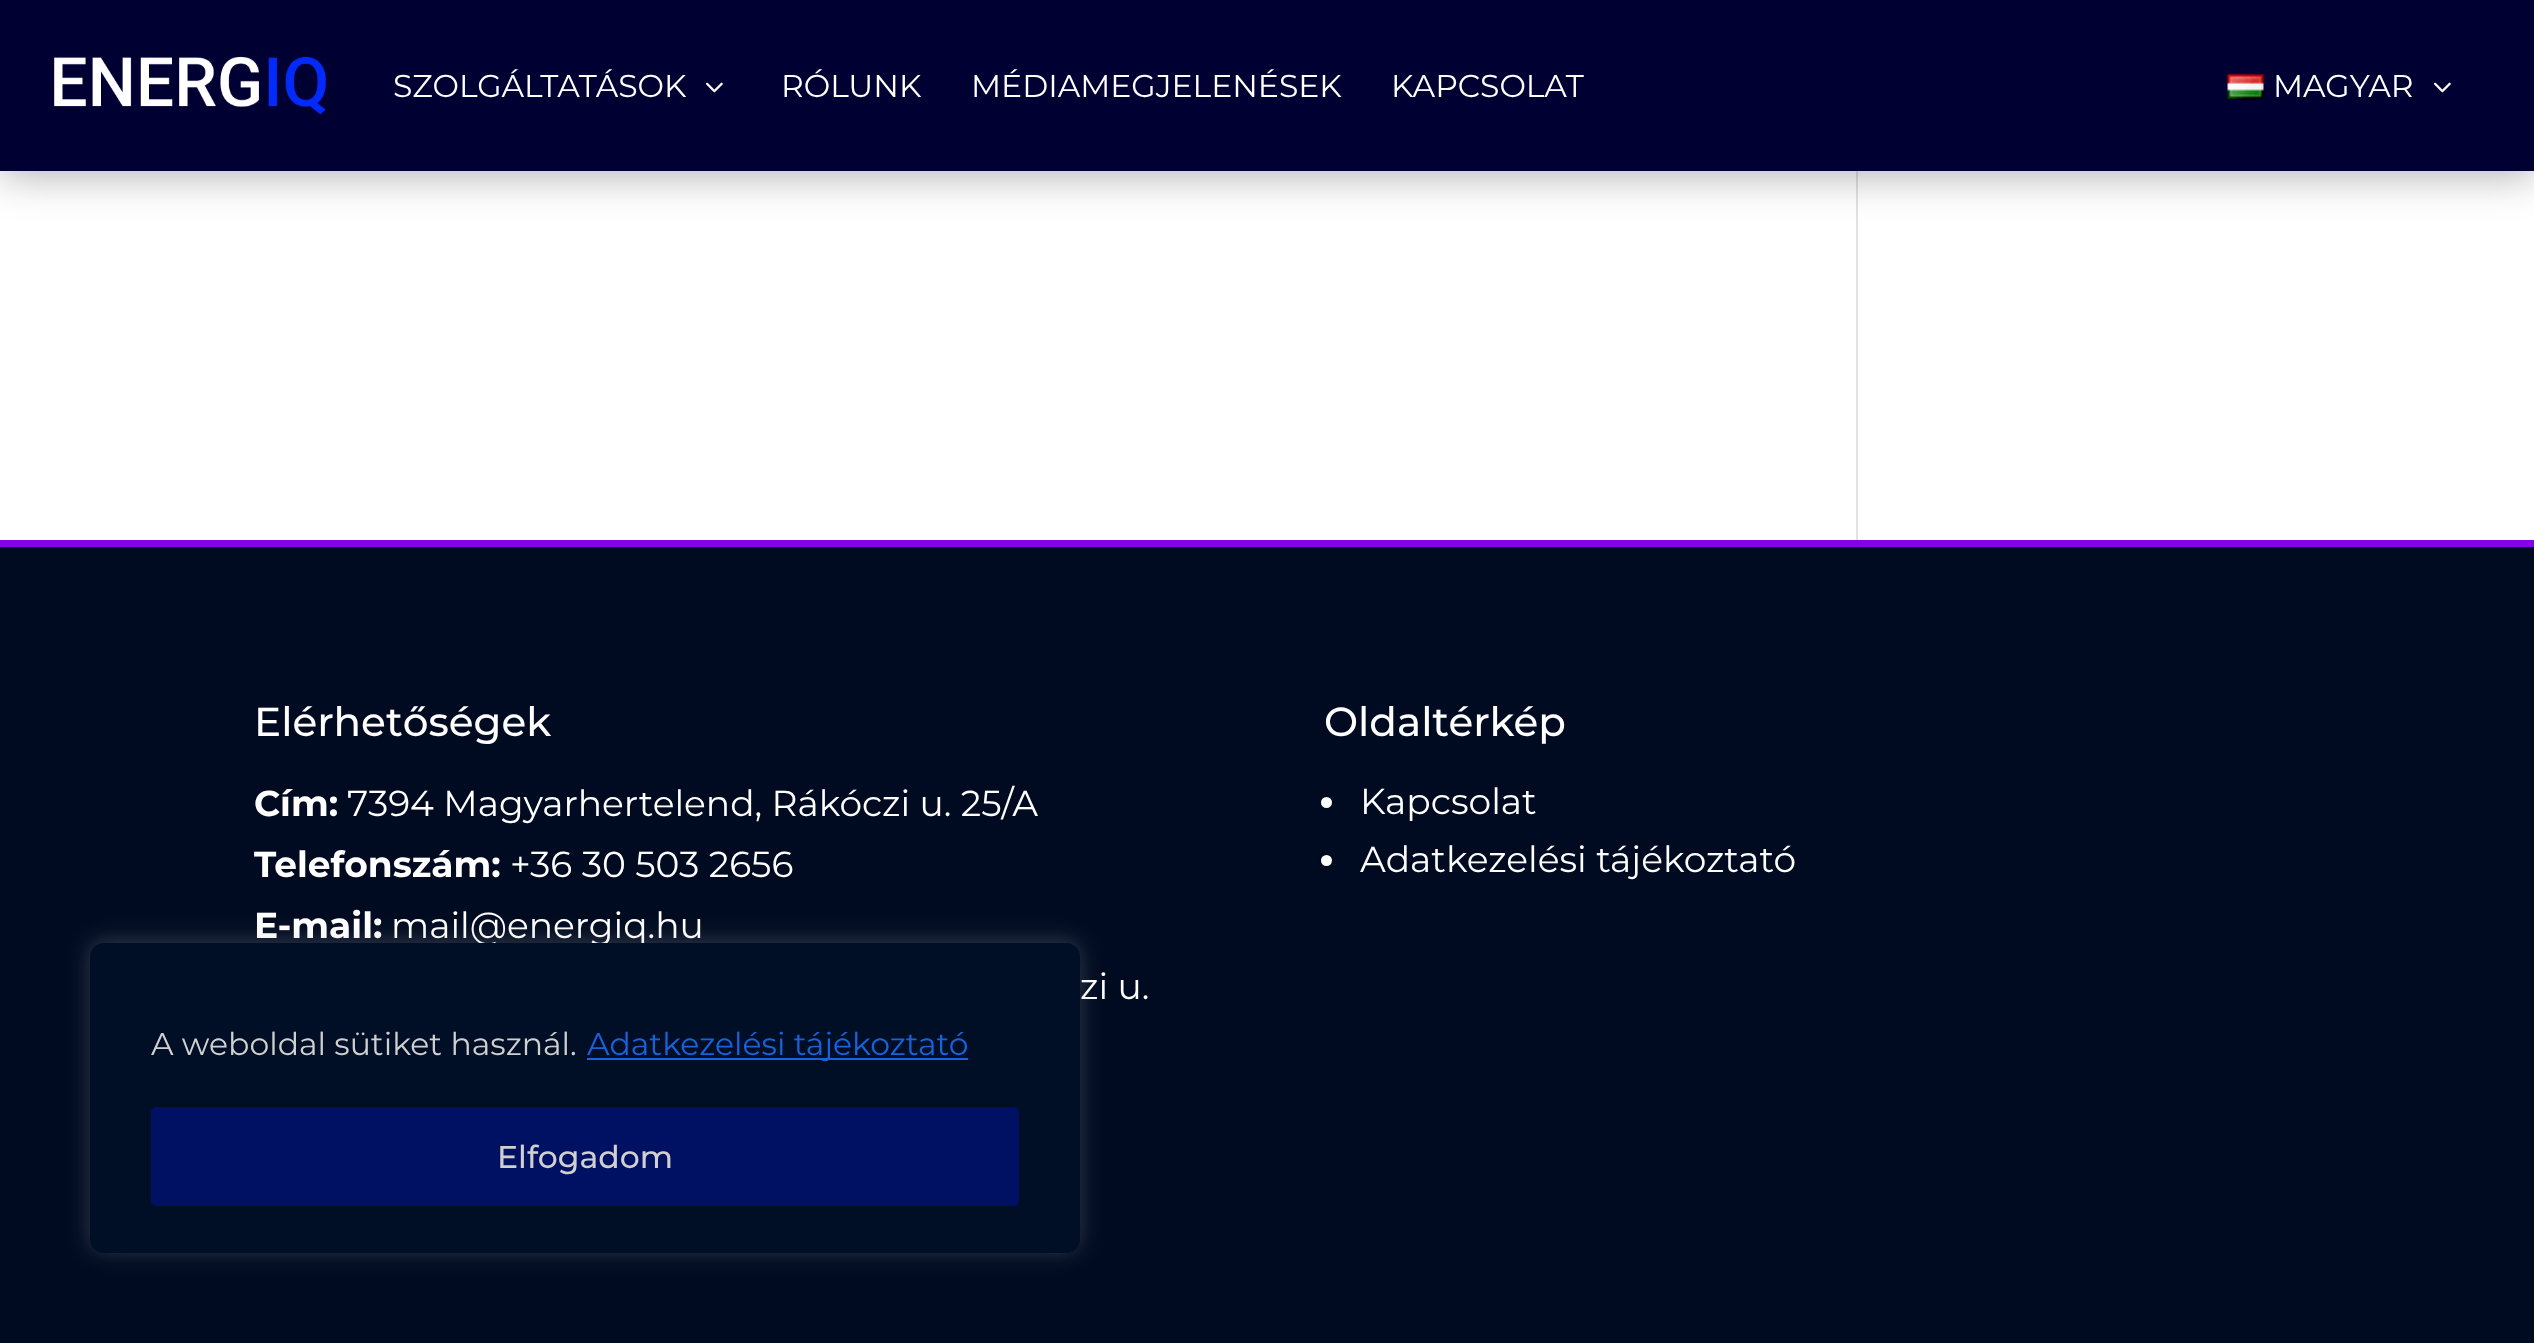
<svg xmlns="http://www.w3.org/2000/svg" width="2534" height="1343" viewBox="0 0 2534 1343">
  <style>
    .t1 { font: 31.5px Montserrat; fill: #fff; }
    .t2 { font: 500 40.5px Montserrat; fill: #fff; }
    .t3 { font: bold 36px Montserrat; fill: #fff; }
    .t4 { font: 36px Montserrat; fill: #fff; }
    .t5 { font: 31.5px Montserrat; fill: #d0d0d0; }
    .t6 { font: 31.5px Montserrat; fill: #1863dc; }
    .t7 { font: 500 31.5px Montserrat; fill: #d0d0d0; }
  </style>
  <rect width="100%" height="100%" fill="#fff"/>
  <rect x="1856" y="171" width="2" height="369" fill="#e2e2e2"/>
  <rect x="0" y="5" width="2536" height="171" fill="#0000004d" filter="blur(20px)"/>
  <rect x="0" y="0" width="2534" height="171" fill="#003"/>
  <image x="54" y="56" width="273" height="59" href="images/1.png"/>
  <text x="393" y="97" class="t1">SZOLGÁLTATÁSOK</text>
  <image x="706" y="82" width="17" height="11" href="images/2.png"/>
  <text x="781" y="97" class="t1">RÓLUNK</text>
  <text x="971" y="97" class="t1">MÉDIAMEGJELENÉSEK</text>
  <text x="1391" y="97" class="t1">KAPCSOLAT</text>
  <image x="2227" y="73" width="37" height="26" href="images/3.png"/>
  <text x="2273" y="97" class="t1">MAGYAR</text>
  <image x="2434" y="82" width="17" height="11" href="images/2.png"/>
  <rect x="0" y="547" width="2534" height="796" fill="#000b21"/>
  <rect x="0" y="540" width="2534" height="7" fill="#8300e9"/>
  <text x="254" y="736" class="t2">Elérhetőségek</text>
  <text x="254" y="816" class="t3">Cím:</text>
  <text x="347" y="816" class="t4">7394 Magyarhertelend, Rákóczi u. 25/A</text>
  <text x="254" y="877" class="t3">Telefonszám:</text>
  <text x="510" y="877" class="t4">+36 30 503 2656</text>
  <text x="254" y="938" class="t3">E-mail:</text>
  <text x="391" y="938" class="t4">mail@energiq.hu</text>
  <text x="1080" y="999" class="t4">zi u.</text>
  <text x="1324" y="736" class="t2">Oldaltérkép</text>
  <circle cx="1326.5" cy="802.5" r="5.5" fill="#fff"/>
  <text x="1360" y="814" class="t4">Kapcsolat</text>
  <circle cx="1326.5" cy="860.5" r="5.5" fill="#fff"/>
  <text x="1360" y="872" class="t4">Adatkezelési tájékoztató</text>
  <rect x="90" y="941" width="990" height="310" rx="14" fill="#acabab4d" filter="blur(11px)"/>
  <rect x="91" y="944" width="988" height="308" rx="13" fill="#000e26" stroke="#000e26" stroke-width="2"/>
  <text x="151" y="1055" class="t5">A weboldal sütiket használ.</text>
  <rect x="587" y="1058" width="381" height="2" fill="#1863dc"/>
  <text x="587" y="1055" class="t6">Adatkezelési tájékoztató</text>
  <rect x="153.5" y="1109.5" width="863" height="94" rx="2.5" fill="#001063" stroke="#001063" stroke-width="5"/>
  <text x="497" y="1168" class="t7">Elfogadom</text>
</svg>
